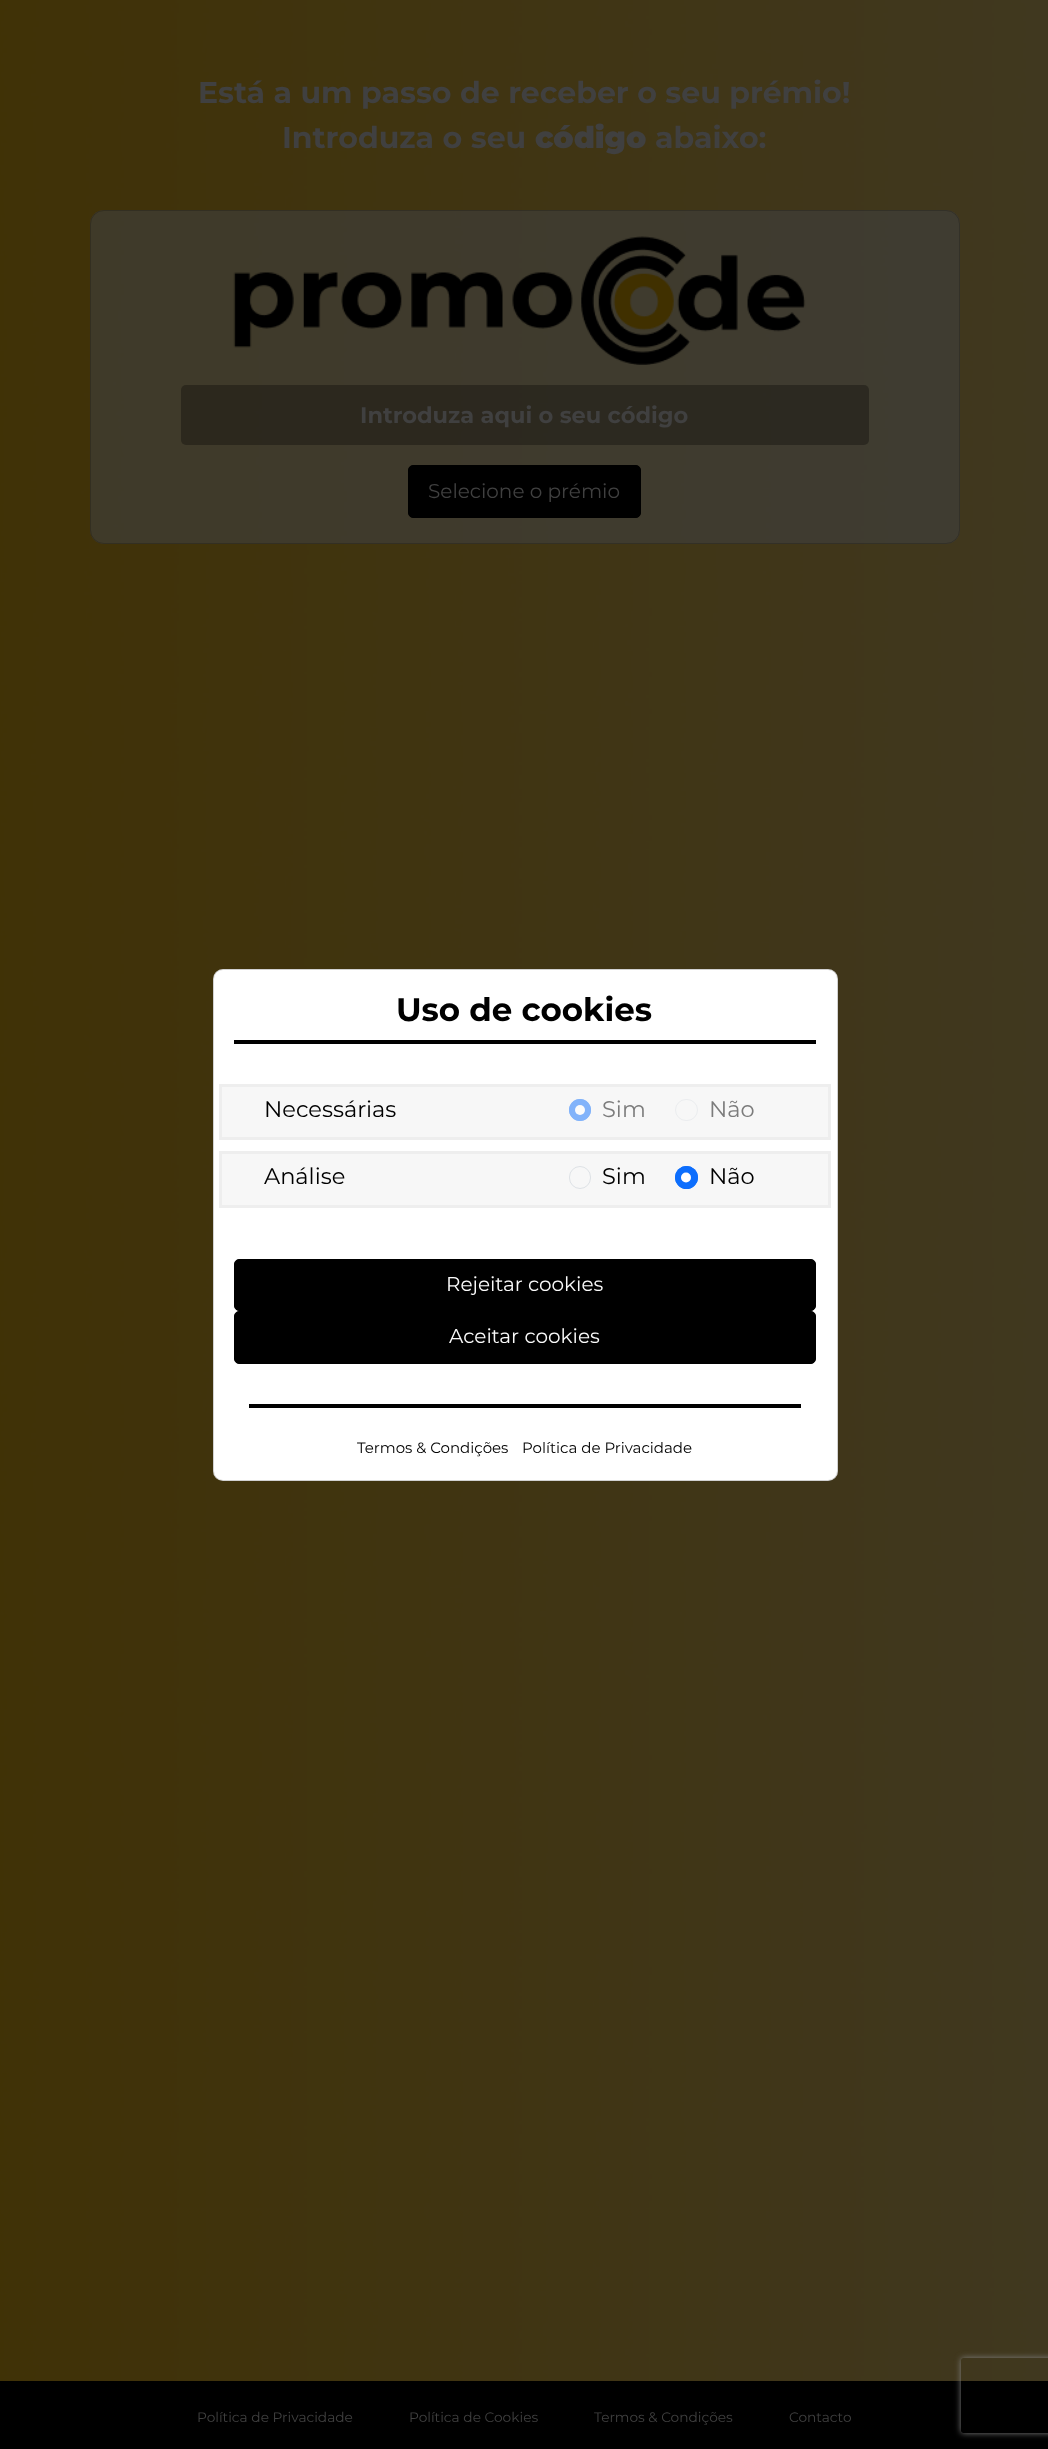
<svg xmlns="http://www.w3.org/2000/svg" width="1048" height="2449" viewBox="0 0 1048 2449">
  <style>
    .t1 { font: bold 30px Montserrat; fill: #404040; }
    .t2 { font: 900 30px Montserrat; fill: #404040; }
    .t3 { font: bold 22.5px Montserrat; fill: #404040; }
    .t4 { font: 20px Montserrat; fill: #404040; }
    .t5 { font: bold 32.5px Montserrat; fill: #000; }
    .t6 { font: 22.5px Montserrat; fill: #000; }
    .t7 { font: 22.5px Montserrat; fill: #7c7c7c; }
    .t8 { font: 20px Montserrat; fill: #fafafa; }
    .t9 { font: 15px Montserrat; fill: #000; }
    .t10 { font: 13.75px Montserrat; fill: #404040; }
  </style>
  <defs>
    <clipPath id="clip1"><path d="M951 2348H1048V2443H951ZM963.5 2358H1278.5C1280 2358 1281 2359 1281 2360.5V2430.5C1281 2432 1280 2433 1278.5 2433H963.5C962 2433 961 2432 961 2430.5V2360.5C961 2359 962 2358 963.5 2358Z" clip-rule="evenodd"/></clipPath>
  </defs>
  <rect width="100%" height="100%" fill="#fff"/>
  <image x="0" y="0" width="1048" height="2381" href="images/1.png"/>
  <text x="198" y="103" class="t1">Está a um passo de receber o seu prémio!</text>
  <text x="282" y="148" class="t1">Introduza o seu</text>
  <text x="535" y="148" class="t2">código</text>
  <text x="655" y="148" class="t1">abaixo:</text>
  <rect x="90" y="210" width="870" height="334" rx="14" fill="#3f3f3f99"/>
  <rect x="90.5" y="210.5" width="869" height="333" rx="13.5" fill="none" stroke="#0000002e"/>
  <image x="233" y="236" width="573" height="129" href="images/2.png"/>
  <rect x="181" y="385" width="688" height="60" rx="5" fill="#0000004d"/>
  <text x="360" y="423" class="t3">Introduza aqui o seu código</text>
  <rect x="408.5" y="465.5" width="232" height="52" rx="4.5" fill="#000" stroke="#000"/>
  <text x="428" y="498" class="t4">Selecione o prémio</text>
  <rect x="213" y="969" width="625" height="512" rx="10" fill="#fff"/>
  <rect x="213.5" y="969.5" width="624" height="511" rx="9.5" fill="none" stroke="#0000002e"/>
  <rect x="234" y="1040" width="582" height="4" fill="#000"/>
  <text x="396" y="1021" class="t5">Uso de cookies</text>
  <rect x="220.5" y="1085.5" width="609" height="53" fill="#f7f7f7" stroke="#eee" stroke-width="3"/>
  <text x="264" y="1117" class="t6">Necessárias</text>
  <circle cx="580" cy="1110" r="11" fill="#82b3fa"/>
  <circle cx="580" cy="1110" r="5" fill="#fbfbfb"/>
  <circle cx="580" cy="1110" r="10.5" fill="none" stroke="#82b3fa"/>
  <text x="602" y="1117" class="t7">Sim</text>
  <rect x="675.5" y="1099.5" width="22" height="21" rx="10.5" fill="none" stroke="#ebedef"/>
  <text x="709" y="1117" class="t7">Não</text>
  <rect x="220.5" y="1152.5" width="609" height="54" fill="#f7f7f7" stroke="#eee" stroke-width="3"/>
  <text x="264" y="1184" class="t6">Análise</text>
  <rect x="569.5" y="1166.5" width="21" height="22" rx="10.5" fill="none" stroke="#dee2e6"/>
  <text x="602" y="1184" class="t6">Sim</text>
  <circle cx="686.5" cy="1177.5" r="11.5" fill="#0d6efd"/>
  <circle cx="686" cy="1177.5" r="5" fill="#fff"/>
  <circle cx="686.5" cy="1177.5" r="11" fill="none" stroke="#0d6efd"/>
  <text x="709" y="1184" class="t6">Não</text>
  <rect x="234.5" y="1259.5" width="581" height="51" rx="4.5" fill="#000" stroke="#000"/>
  <text x="446" y="1291" class="t8">Rejeitar cookies</text>
  <rect x="234.5" y="1311.5" width="581" height="52" rx="4.5" fill="#000" stroke="#000"/>
  <text x="449" y="1343" class="t8">Aceitar cookies</text>
  <rect x="249" y="1404" width="552" height="4" fill="#000"/>
  <text x="357" y="1453" class="t9">Termos &amp; Condições</text>
  <text x="522" y="1453" class="t9">Política de Privacidade</text>
  <rect x="0" y="2381" width="1048" height="68" fill="#000"/>
  <text x="197" y="2422" class="t10">Política de Privacidade</text>
  <text x="409" y="2422" class="t10">Política de Cookies</text>
  <text x="594" y="2422" class="t10">Termos &amp; Condições</text>
  <text x="789" y="2422" class="t10">Contacto</text>
  <g clip-path="url(#clip1)">
    <rect x="961" y="2358" width="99" height="75" rx="2.5" fill="#808080" filter="blur(3px)"/>
  </g>
</svg>
